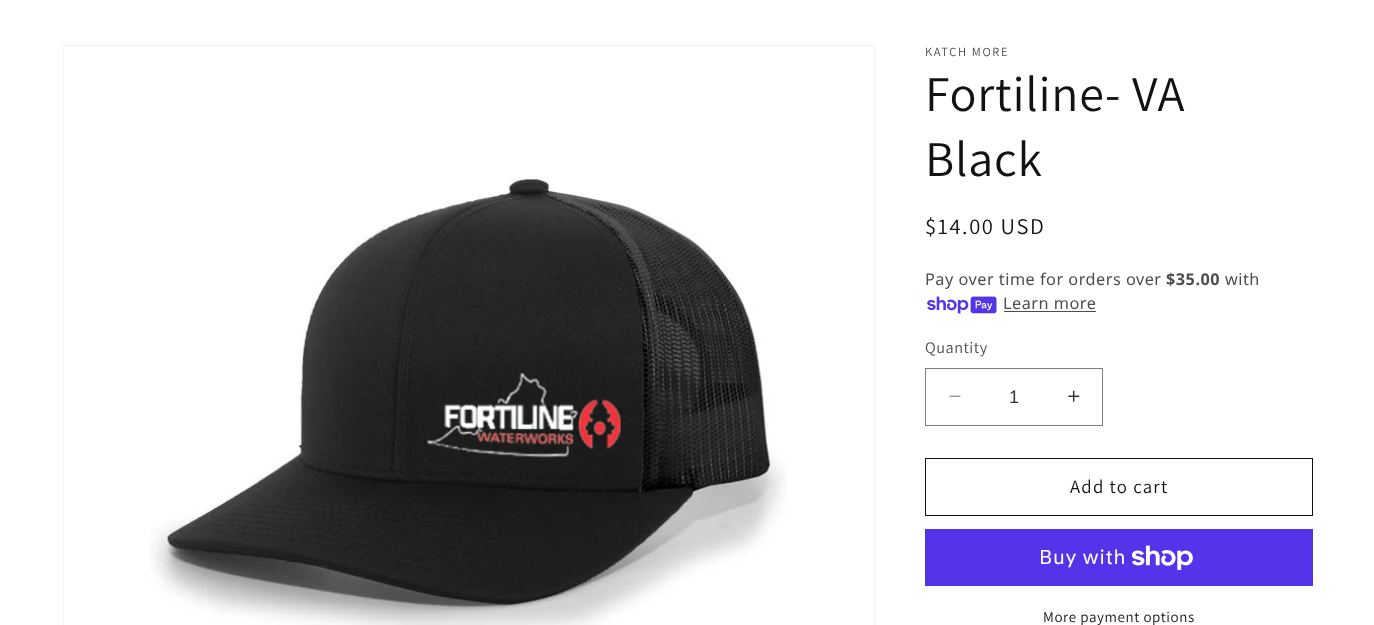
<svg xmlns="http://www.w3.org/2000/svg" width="1374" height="625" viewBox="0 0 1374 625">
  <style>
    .t1 { font: 12.5px Assistant; letter-spacing: 1.6px; fill: #4d4d4d; }
    .t2 { font: 50px Assistant; letter-spacing: 0.75px; fill: #121212; }
    .t3 { font: 22.5px Assistant; letter-spacing: 1.6px; fill: #121212; }
    .t4 { font: 16.25px Noto Sans; letter-spacing: 0.5px; fill: #4d4d4d; }
    .t5 { font: bold 16.25px Noto Sans; letter-spacing: 0.5px; fill: #4d4d4d; }
    .t6 { font: 16.25px Assistant; letter-spacing: 0.5px; fill: #4d4d4d; }
    .t7 { font: 18px Liberation Sans; fill: #363636; }
    .t8 { font: 18.75px Assistant; letter-spacing: 1.25px; fill: #121212; }
    .t9 { font: 20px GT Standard; letter-spacing: 0.75px; fill: #fff; }
    .t10 { font: 15px Assistant; letter-spacing: 0.6px; fill: #121212; }
  </style>
  <rect width="100%" height="100%" fill="#fff"/>
  <rect x="63.5" y="45.5" width="811" height="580" fill="none" stroke="#f3f3f3"/>
  <image x="149" y="176" width="638" height="449" href="images/1.png"/>
  <text x="925" y="56" class="t1">KATCH MORE</text>
  <text x="925" y="111" class="t2">Fortiline- VA</text>
  <text x="925" y="176" class="t2">Black</text>
  <text x="925" y="234" class="t3">$14.00 USD</text>
  <text x="925" y="285" class="t4">Pay over time for orders over</text>
  <text x="1166" y="285" class="t5">$35.00</text>
  <text x="1225" y="285" class="t4">with</text>
  <image x="927" y="296" width="70" height="18" href="images/2.png"/>
  <text x="1003" y="309" class="t4">Learn more</text>
  <rect x="1004" y="311" width="92" height="1" fill="#4d4d4d"/>
  <text x="925" y="353" class="t6">Quantity</text>
  <image x="949" y="395" width="12" height="2" href="images/3.png"/>
  <image x="1068" y="390" width="12" height="12" href="images/4.png"/>
  <rect x="925.5" y="368.5" width="177" height="57" fill="none" stroke="#7d7d7d"/>
  <text x="1009" y="403" class="t7">1</text>
  <rect x="925.5" y="458.5" width="387" height="57" fill="none" stroke="#121212"/>
  <text x="1070" y="493" class="t8">Add to cart</text>
  <rect x="925" y="529" width="388" height="57" fill="#5433eb"/>
  <text x="1039" y="564" class="t9">Buy with</text>
  <image x="1131" y="545" width="62" height="25" href="images/5.png"/>
  <text x="1043" y="622" class="t10">More payment options</text>
</svg>
